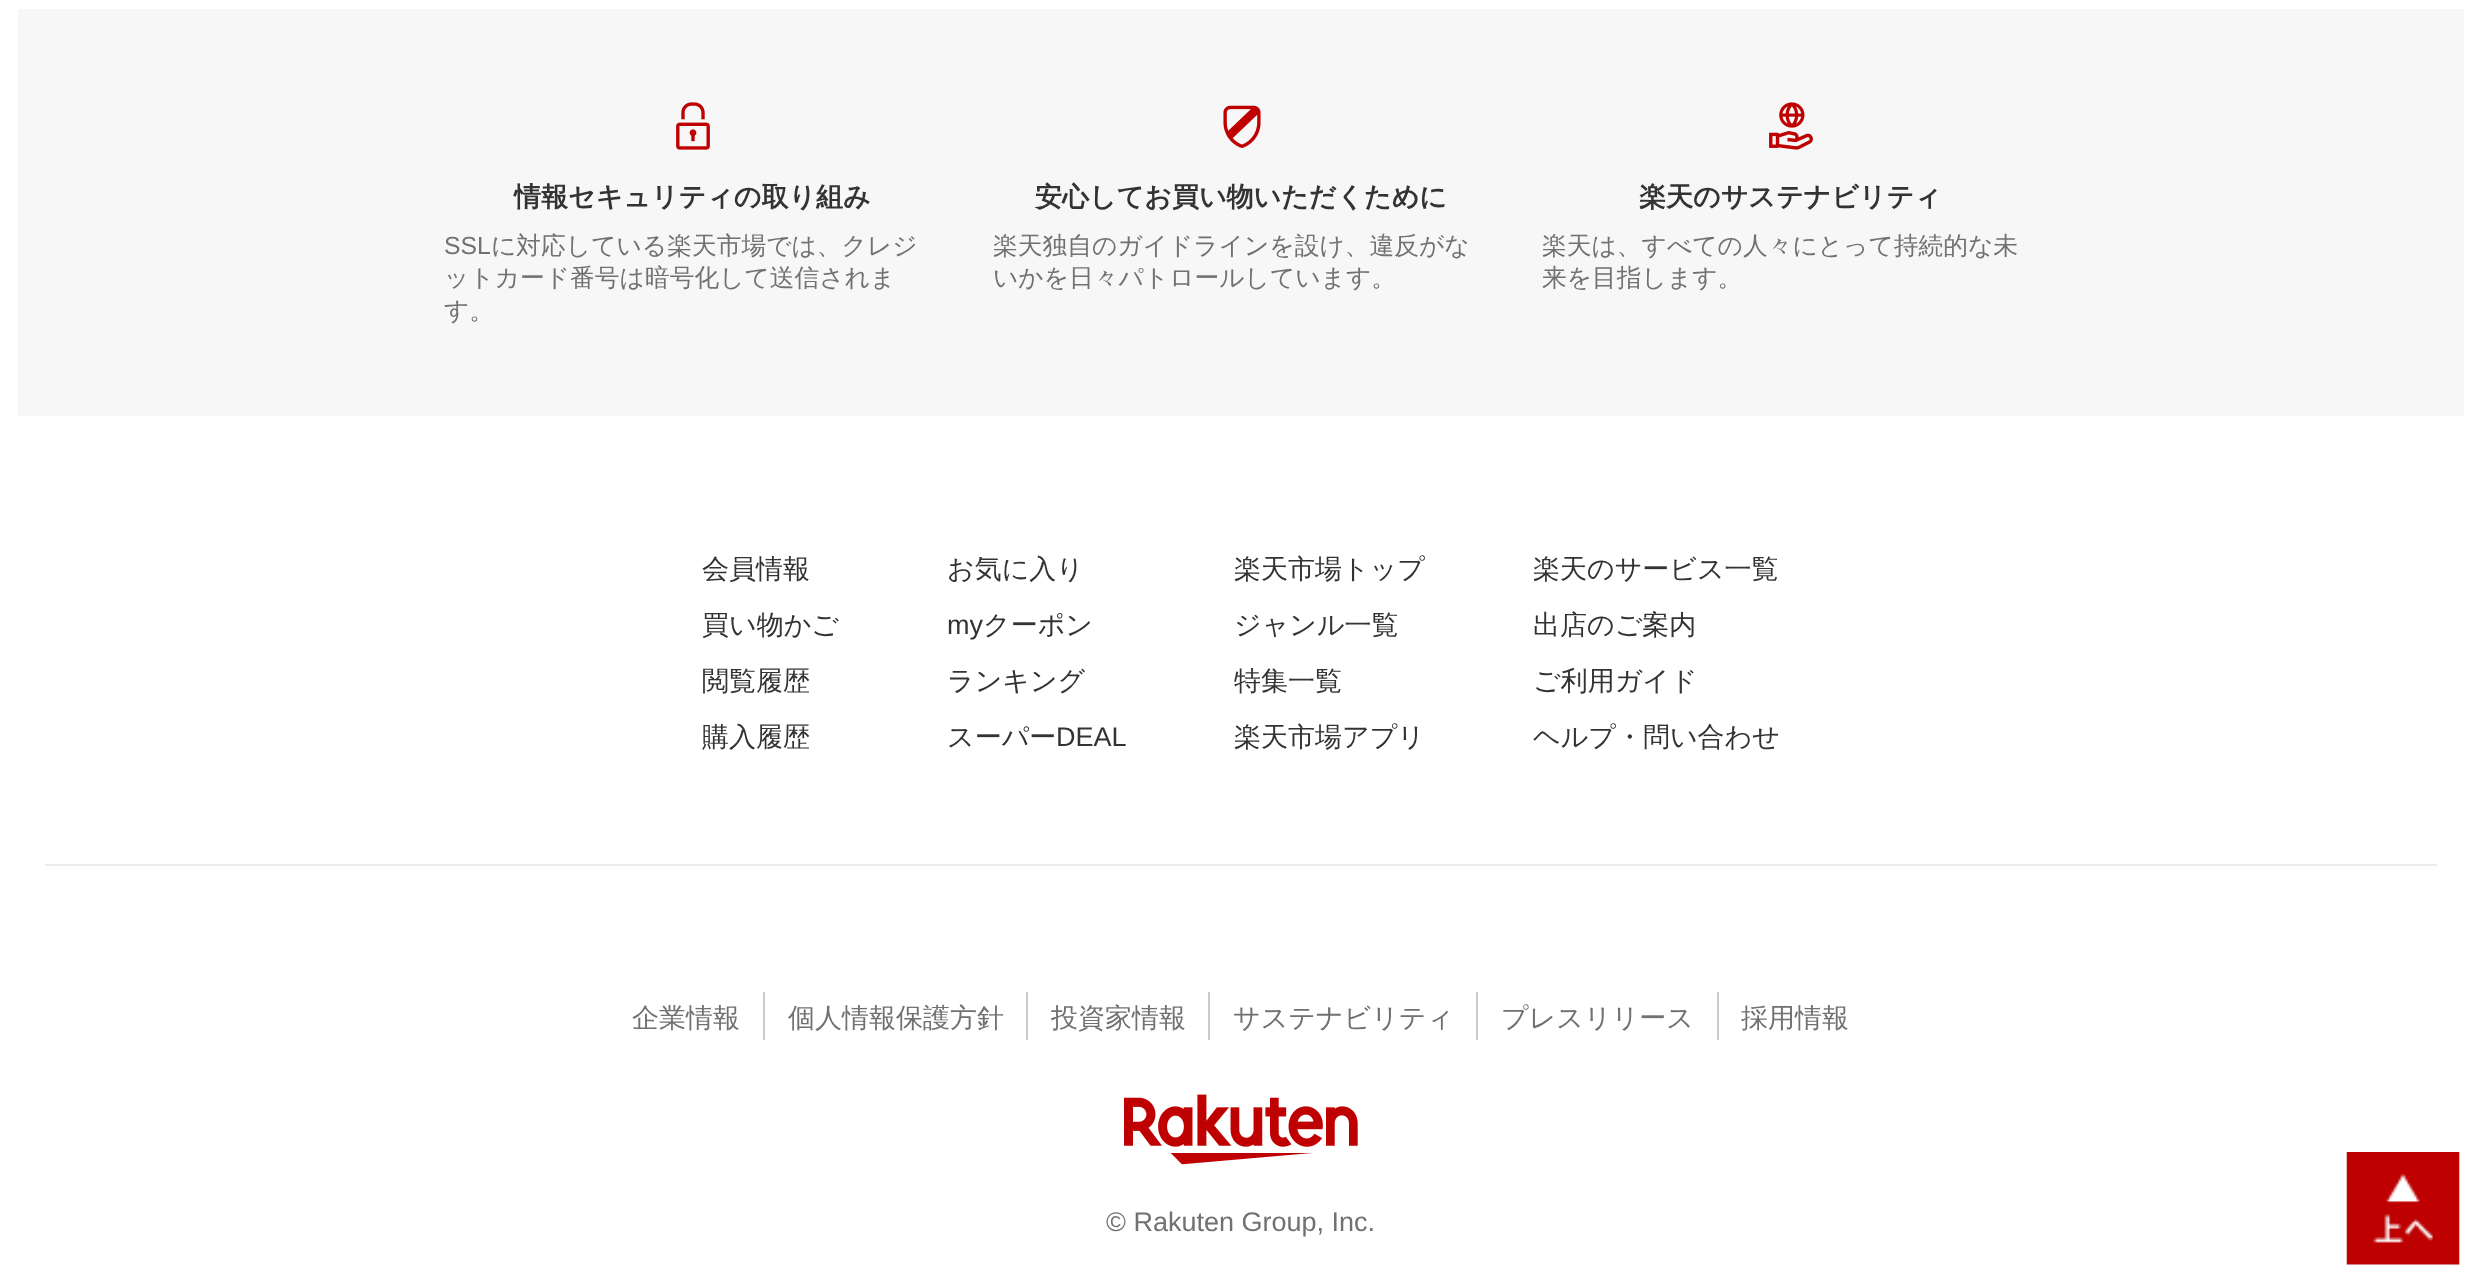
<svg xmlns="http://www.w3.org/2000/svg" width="2481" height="1285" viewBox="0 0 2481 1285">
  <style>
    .t1 { font: bold 27px WenQuanYi Zen Hei; fill: #333; }
    .t2 { font: 24.75px Liberation Sans; fill: #717171; }
    .t3 { font: 500 24.75px WenQuanYi Zen Hei; fill: #717171; }
    .t4 { font: 500 27px WenQuanYi Zen Hei; fill: #333; }
    .t5 { font: 27px Liberation Sans; fill: #333; }
    .t6 { font: 500 27px WenQuanYi Zen Hei; fill: #717171; }
    .t7 { font: 27px Liberation Sans; fill: #717171; }
  </style>
  <rect width="100%" height="100%" fill="#fff"/>
  <rect x="18" y="9" width="2446" height="407" fill="#f7f7f7"/>
  <image x="676" y="102" width="34" height="48" href="images/1.png"/>
  <text x="514" y="206" class="t1">情報セキュリティの取り組み</text>
  <text x="444" y="254" class="t2">SSL</text>
  <text x="491" y="254" class="t3">に対応している楽天市場では、クレジ</text>
  <text x="444" y="286" class="t3">ットカード番号は暗号化して送信されま</text>
  <text x="444" y="319" class="t3">す。</text>
  <image x="1223" y="105" width="38" height="43" href="images/2.png"/>
  <text x="1035" y="206" class="t1">安心してお買い物いただくために</text>
  <text x="993" y="254" class="t3">楽天独自のガイドラインを設け、違反がな</text>
  <text x="993" y="286" class="t3">いかを日々パトロールしています。</text>
  <image x="1769" y="102" width="44" height="48" href="images/3.png"/>
  <text x="1639" y="206" class="t1">楽天のサステナビリティ</text>
  <text x="1542" y="254" class="t3">楽天は、すべての人々にとって持続的な未</text>
  <text x="1542" y="286" class="t3">来を目指します。</text>
  <rect x="45" y="864" width="2392" height="2" fill="#ebebeb"/>
  <text x="702" y="578" class="t4">会員情報</text>
  <text x="702" y="634" class="t4">買い物かご</text>
  <text x="702" y="690" class="t4">閲覧履歴</text>
  <text x="702" y="746" class="t4">購入履歴</text>
  <text x="947" y="578" class="t4">お気に入り</text>
  <text x="947" y="634" class="t5">my</text>
  <text x="983" y="634" class="t4">クーポン</text>
  <text x="947" y="690" class="t4">ランキング</text>
  <text x="947" y="746" class="t4">スーパー</text>
  <text x="1056" y="746" class="t5">DEAL</text>
  <text x="1234" y="578" class="t4">楽天市場トップ</text>
  <text x="1234" y="634" class="t4">ジャンル一覧</text>
  <text x="1234" y="690" class="t4">特集一覧</text>
  <text x="1234" y="746" class="t4">楽天市場アプリ</text>
  <text x="1533" y="578" class="t4">楽天のサービス一覧</text>
  <text x="1533" y="634" class="t4">出店のご案内</text>
  <text x="1533" y="690" class="t4">ご利用ガイド</text>
  <text x="1533" y="746" class="t4">ヘルプ・問い合わせ</text>
  <rect x="763" y="992" width="2" height="48" fill="#ccc"/>
  <text x="632" y="1027" class="t6">企業情報</text>
  <rect x="1026" y="992" width="2" height="48" fill="#ccc"/>
  <text x="788" y="1027" class="t6">個人情報保護方針</text>
  <rect x="1208" y="992" width="2" height="48" fill="#ccc"/>
  <text x="1051" y="1027" class="t6">投資家情報</text>
  <rect x="1476" y="992" width="2" height="48" fill="#ccc"/>
  <text x="1233" y="1027" class="t6">サステナビリティ</text>
  <rect x="1717" y="992" width="2" height="48" fill="#ccc"/>
  <text x="1501" y="1027" class="t6">プレスリリース</text>
  <text x="1741" y="1027" class="t6">採用情報</text>
  <image x="1124" y="1094" width="234" height="71" href="images/4.png"/>
  <text x="1106" y="1231" class="t7">© Rakuten Group, Inc.</text>
  <image x="2346" y="1152" width="114" height="113" href="images/5.png"/>
</svg>
